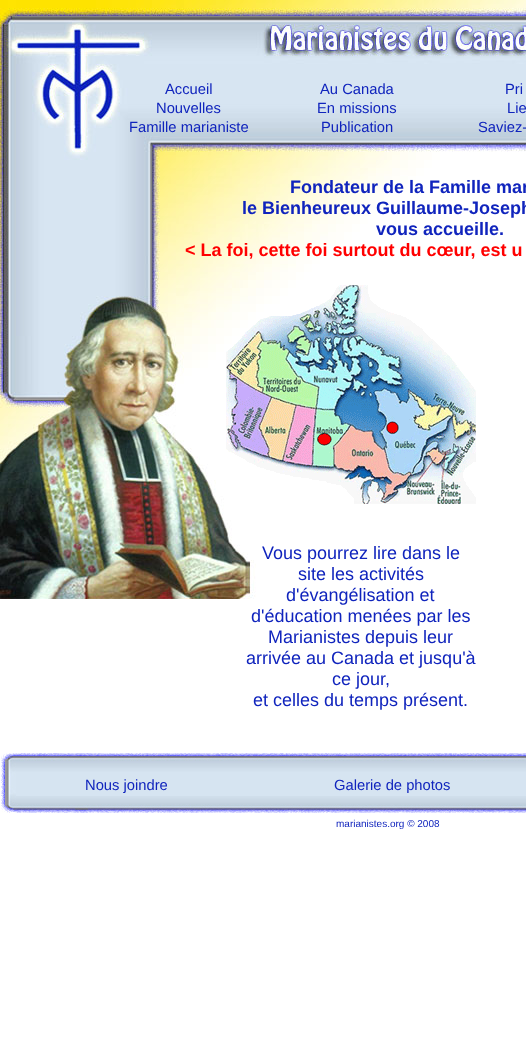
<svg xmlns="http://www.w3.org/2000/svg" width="526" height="1061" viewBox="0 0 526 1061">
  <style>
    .t1 { font: 14.75px Liberation Sans; fill: #1024bd; }
    .t2 { font: bold 18px Liberation Sans; fill: #1024bd; }
    .t3 { font: bold 18px Liberation Sans; fill: #f00; }
    .t4 { font: 18px Liberation Sans; fill: #1024bd; }
    .t5 { font: 10px Liberation Sans; fill: #1024bd; }
  </style>
  <rect width="100%" height="100%" fill="#fff"/>
  <image x="0" y="0" width="526" height="599" href="images/1.png"/>
  <text x="165" y="94" class="t1">Accueil</text>
  <text x="156" y="113" class="t1">Nouvelles</text>
  <text x="129" y="132" class="t1">Famille marianiste</text>
  <text x="320" y="94" class="t1">Au Canada</text>
  <text x="317" y="113" class="t1">En missions</text>
  <text x="321" y="132" class="t1">Publication</text>
  <text x="505" y="94" class="t1">Pri</text>
  <text x="507" y="113" class="t1">Lie</text>
  <text x="478" y="132" class="t1">Saviez-</text>
  <text x="290" y="193" class="t2">Fondateur de la Famille mar</text>
  <text x="242" y="214" class="t2">le Bienheureux Guillaume-Joseph</text>
  <text x="376" y="235" class="t2">vous accueille.</text>
  <text x="185" y="256" class="t3">&lt; La foi, cette foi surtout du cœur, est u</text>
  <image x="226" y="285" width="250" height="219" href="images/2.png"/>
  <text x="262" y="559" class="t4">Vous pourrez lire dans le</text>
  <text x="298" y="580" class="t4">site les activités</text>
  <text x="286" y="601" class="t4">d'évangélisation et</text>
  <text x="251" y="622" class="t4">d'éducation menées par les</text>
  <text x="268" y="643" class="t4">Marianistes depuis leur</text>
  <text x="246" y="664" class="t4">arrivée au Canada et jusqu'à</text>
  <text x="332" y="685" class="t4">ce jour,</text>
  <text x="253" y="706" class="t4">et celles du temps présent.</text>
  <image x="1" y="753" width="15" height="60" href="images/3.png"/>
  <image x="16" y="753" width="510" height="20" href="images/4.png"/>
  <rect x="16" y="773" width="510" height="23" fill="#d6e4f1"/>
  <text x="85" y="790" class="t1">Nous joindre</text>
  <text x="334" y="790" class="t1">Galerie de photos</text>
  <image x="16" y="796" width="510" height="17" href="images/5.png"/>
  <text x="336" y="827" class="t5">marianistes.org © 2008</text>
</svg>
